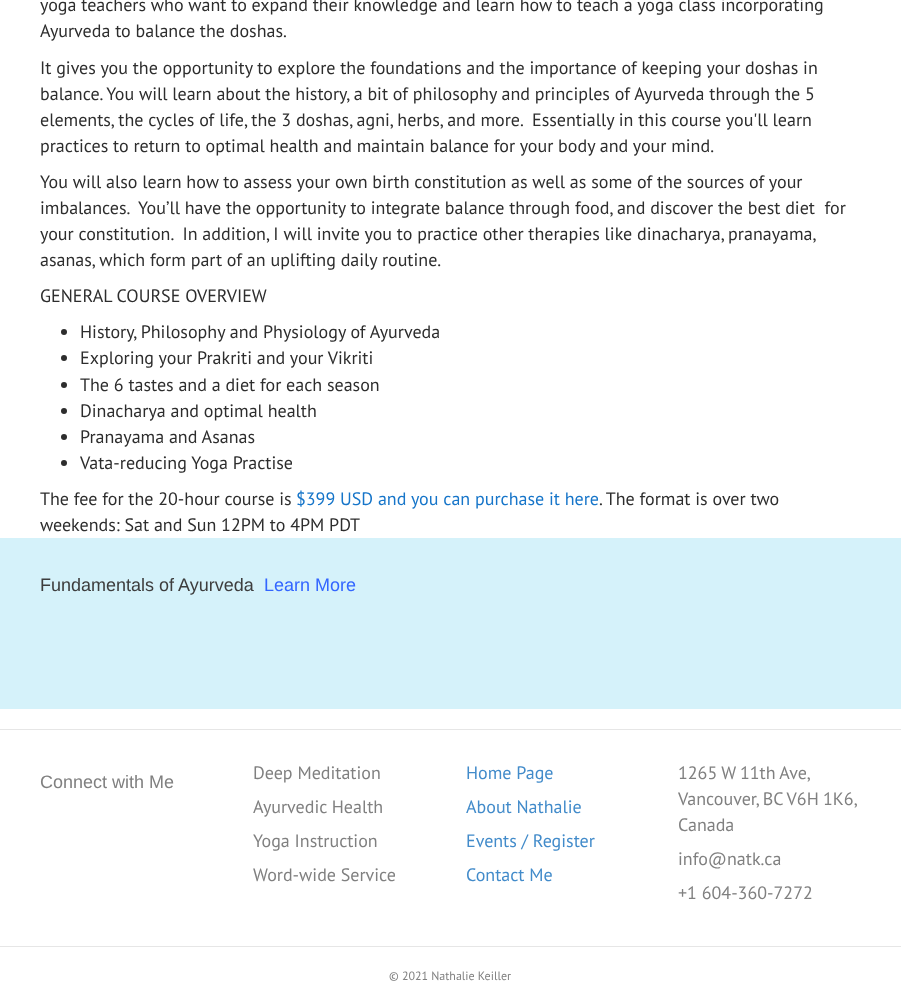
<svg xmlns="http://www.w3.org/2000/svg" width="901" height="1004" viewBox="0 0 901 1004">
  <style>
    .t1 { font: 18px PT Sans; fill: #2d2d2d; }
    .t2 { font: 18px PT Sans; fill: #1675c9; }
    .t3 { font: 18px Liberation Sans; fill: #3d3d3d; }
    .t4 { font: 18px Liberation Sans; fill: #36f; }
    .t5 { font: 18px Liberation Sans; fill: #808080; }
    .t6 { font: 18px PT Sans; fill: #808080; }
    .t7 { font: 18px PT Sans; fill: #428bca; }
    .t8 { font: 12px PT Sans; fill: #808080; }
  </style>
  <rect width="100%" height="100%" fill="#fff"/>
  <text x="40" y="11" class="t1">yoga teachers who want to expand their knowledge and learn how to teach a yoga class incorporating</text>
  <text x="40" y="37" class="t1">Ayurveda to balance the doshas.</text>
  <text x="40" y="74" class="t1">It gives you the opportunity to explore the foundations and the importance of keeping your doshas in</text>
  <text x="40" y="100" class="t1">balance. You will learn about the history, a bit of philosophy and principles of Ayurveda through the 5</text>
  <text x="40" y="126" class="t1" xml:space="preserve">elements, the cycles of life, the 3 doshas, agni, herbs, and more.  Essentially in this course you'll learn</text>
  <text x="40" y="152" class="t1">practices to return to optimal health and maintain balance for your body and your mind.</text>
  <text x="40" y="188" class="t1">You will also learn how to assess your own birth constitution as well as some of the sources of your</text>
  <text x="40" y="214" class="t1" xml:space="preserve">imbalances.  You’ll have the opportunity to integrate balance through food, and discover the best diet  for</text>
  <text x="40" y="240" class="t1" xml:space="preserve">your constitution.  In addition, I will invite you to practice other therapies like dinacharya, pranayama,</text>
  <text x="40" y="266" class="t1">asanas, which form part of an uplifting daily routine.</text>
  <text x="40" y="302" class="t1">GENERAL COURSE OVERVIEW</text>
  <circle cx="64" cy="332" r="3" fill="#2d2d2d"/>
  <text x="80" y="338" class="t1">History, Philosophy and Physiology of Ayurveda</text>
  <circle cx="64" cy="358" r="3" fill="#2d2d2d"/>
  <text x="80" y="364" class="t1">Exploring your Prakriti and your Vikriti</text>
  <circle cx="64" cy="385" r="3" fill="#2d2d2d"/>
  <text x="80" y="391" class="t1">The 6 tastes and a diet for each season</text>
  <circle cx="64" cy="411" r="3" fill="#2d2d2d"/>
  <text x="80" y="417" class="t1">Dinacharya and optimal health</text>
  <circle cx="64" cy="437" r="3" fill="#2d2d2d"/>
  <text x="80" y="443" class="t1">Pranayama and Asanas</text>
  <circle cx="64" cy="463" r="3" fill="#2d2d2d"/>
  <text x="80" y="469" class="t1">Vata-reducing Yoga Practise</text>
  <text x="40" y="505" class="t1">The fee for the 20-hour course is</text>
  <text x="296" y="505" class="t2">$399 USD and you can purchase it here</text>
  <text x="599" y="505" class="t1">. The format is over two</text>
  <text x="40" y="531" class="t1">weekends: Sat and Sun 12PM to 4PM PDT</text>
  <rect x="0" y="538" width="901" height="171" fill="#d5f2fa"/>
  <text x="40" y="591" class="t3">Fundamentals of Ayurveda</text>
  <text x="264" y="591" class="t4">Learn More</text>
  <rect x="0" y="729" width="901" height="1" fill="#e6e6e6"/>
  <text x="40" y="788" class="t5">Connect with Me</text>
  <text x="253" y="779" class="t6">Deep Meditation</text>
  <text x="253" y="813" class="t6">Ayurvedic Health</text>
  <text x="253" y="847" class="t6">Yoga Instruction</text>
  <text x="253" y="881" class="t6">Word-wide Service</text>
  <text x="466" y="779" class="t7">Home Page</text>
  <text x="466" y="813" class="t7">About Nathalie</text>
  <text x="466" y="847" class="t7">Events / Register</text>
  <text x="466" y="881" class="t7">Contact Me</text>
  <text x="678" y="779" word-spacing="-0.5" class="t6">1265 W 11th Ave,</text>
  <text x="678" y="805" word-spacing="-0.5" class="t6">Vancouver, BC V6H 1K6,</text>
  <text x="678" y="831" class="t6">Canada</text>
  <text x="678" y="865" class="t6">info@natk.ca</text>
  <text x="678" y="899" class="t6">+1 604-360-7272</text>
  <rect x="0" y="946" width="901" height="1" fill="#e6e6e6"/>
  <text x="389" y="980" class="t8">© 2021 Nathalie Keiller</text>
</svg>
